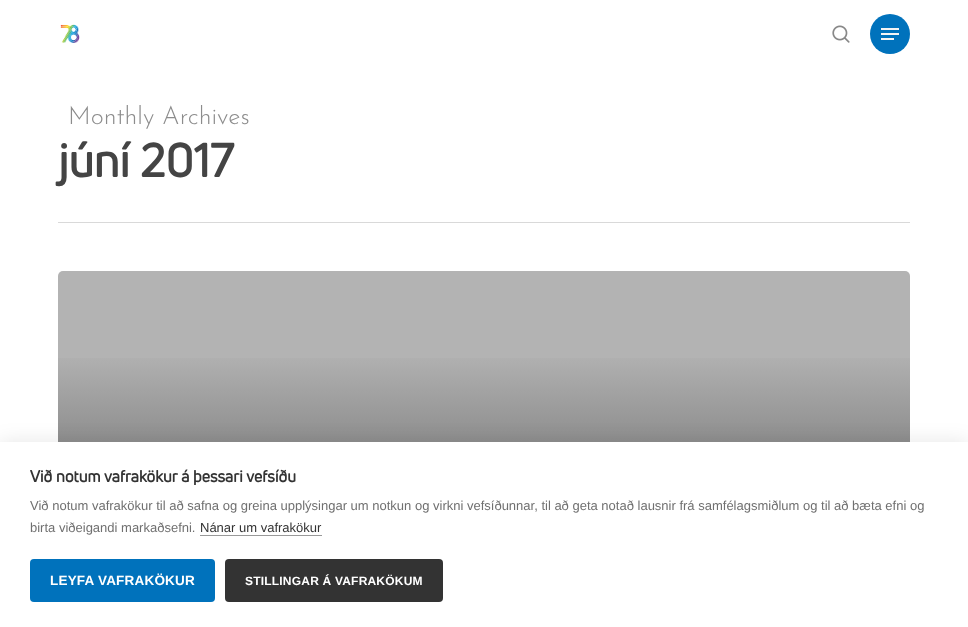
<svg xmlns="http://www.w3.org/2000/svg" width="968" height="627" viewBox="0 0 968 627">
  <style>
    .t1 { font: 100 25px Josefin Sans; fill: #8c8c8c; }
    .t2 { font: bold 46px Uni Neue; fill: #444; }
    .t3 { font: bold 16px Uni Neue; fill: #333; }
    .t4 { font: 13px Liberation Sans; fill: #707070; }
    .t5 { font: 13px Liberation Sans; fill: #333; }
    .t6 { font: bold 13.5px Liberation Sans; letter-spacing: 0.2px; fill: #fff; }
    .t7 { font: bold 12px Liberation Sans; letter-spacing: 0.2px; fill: #fff; }
  </style>
  <defs>
    <linearGradient id="g1" gradientUnits="userSpaceOnUse" x1="486" y1="350" x2="486" y2="586"><stop offset="0" stop-color="#232323" stop-opacity="0"/><stop offset="1" stop-color="#232323" stop-opacity="0.65"/></linearGradient>
  </defs>
  <rect width="100%" height="100%" fill="#fff"/>
  <image x="60" y="24" width="20" height="19" href="images/1.png"/>
  <image x="832" y="25" width="18" height="18" href="images/2.png"/>
  <circle cx="890" cy="34" r="20" fill="#0072bc"/>
  <rect x="881" y="28" width="18" height="2" fill="#f4f4f4"/>
  <rect x="881" y="38" width="13" height="2" fill="#f4f4f4"/>
  <rect x="881" y="33" width="18" height="2" fill="#f4f4f4"/>
  <rect x="58" y="222" width="852" height="1" fill="#d9d9d9"/>
  <text x="68" y="124" class="t1">Monthly Archives</text>
  <text x="58" y="177" class="t2">júní 2017</text>
  <rect x="58" y="271" width="852" height="314" rx="5" fill="#b3b3b3"/>
  <rect x="58" y="358" width="852" height="84" fill="url(#g1)"/>
  <rect x="0" y="442" width="968" height="185" fill="#0000001a" filter="blur(10px)"/>
  <rect x="0" y="442" width="968" height="185" fill="#fff"/>
  <text x="30" y="482" class="t3">Við notum vafrakökur á þessari vefsíðu</text>
  <text x="30" y="510" class="t4">Við notum vafrakökur til að safna og greina upplýsingar um notkun og virkni vefsíðunnar, til að geta notað lausnir frá samfélagsmiðlum og til að bæta efni og</text>
  <text x="30" y="532" class="t4">birta viðeigandi markaðsefni.</text>
  <text x="200" y="532" class="t5">Nánar um vafrakökur</text>
  <rect x="200" y="535" width="122" height="1" fill="#999"/>
  <rect x="30" y="559" width="185" height="43" rx="4" fill="#0072bc"/>
  <text x="50" y="585" class="t6">LEYFA VAFRAKÖKUR</text>
  <rect x="225" y="559" width="218" height="43" rx="4" fill="#333"/>
  <text x="245" y="585" class="t7">STILLINGAR Á VAFRAKÖKUM</text>
</svg>
